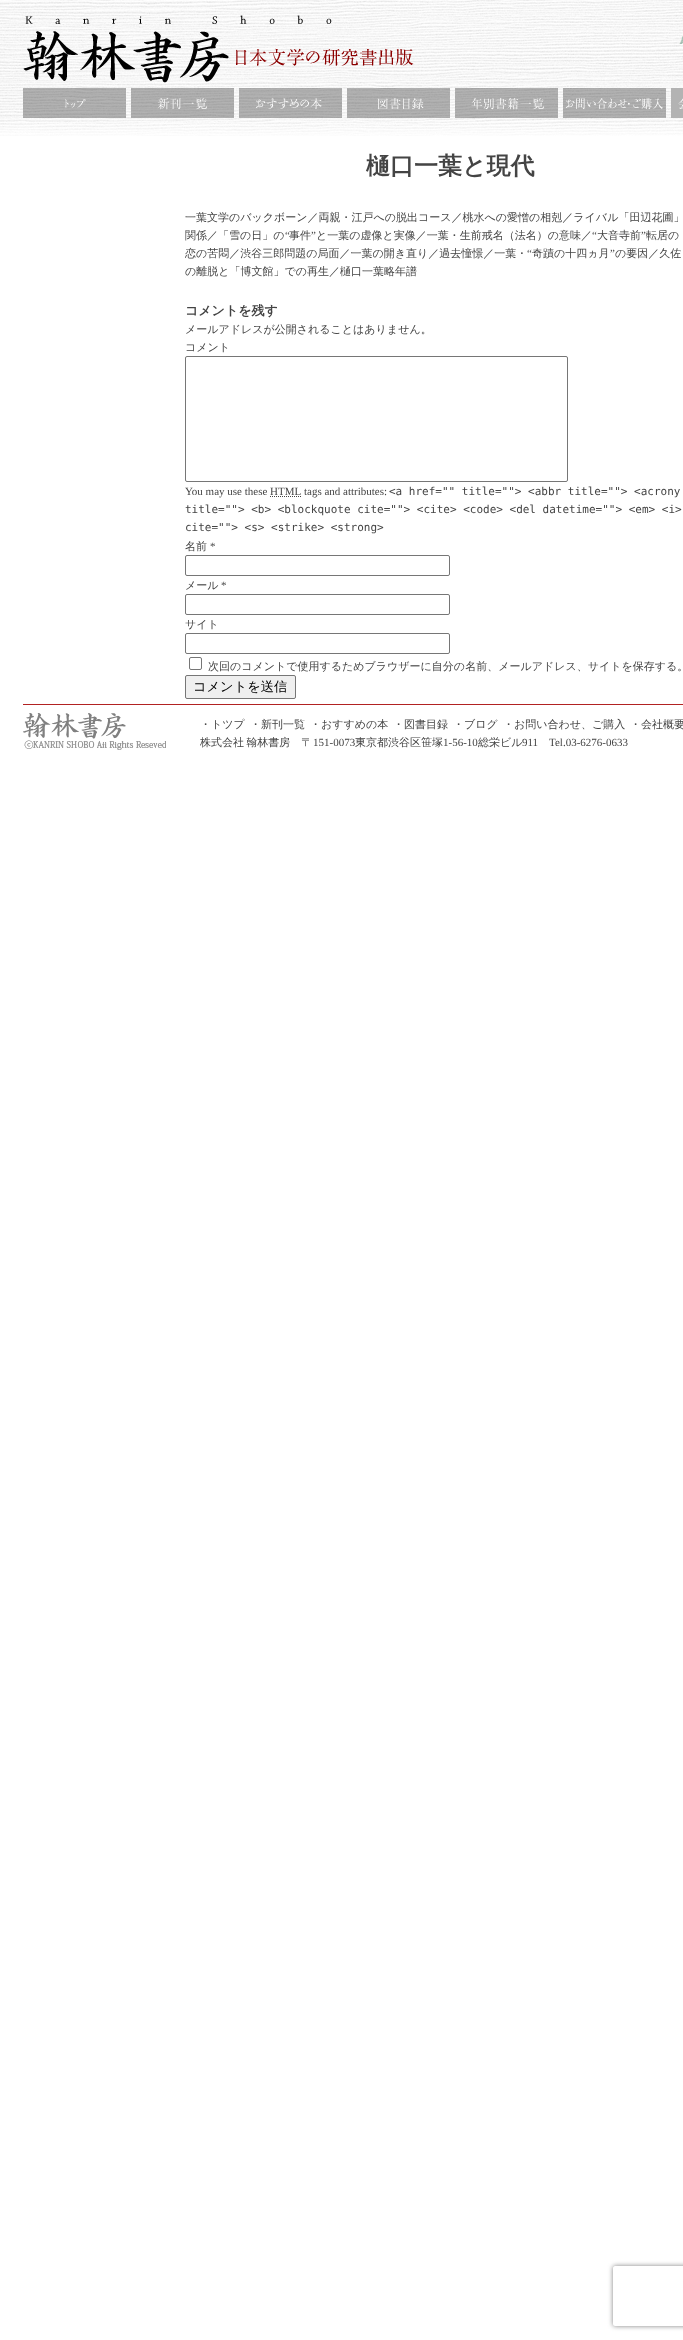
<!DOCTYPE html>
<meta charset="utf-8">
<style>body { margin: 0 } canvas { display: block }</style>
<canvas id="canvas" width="683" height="2340"></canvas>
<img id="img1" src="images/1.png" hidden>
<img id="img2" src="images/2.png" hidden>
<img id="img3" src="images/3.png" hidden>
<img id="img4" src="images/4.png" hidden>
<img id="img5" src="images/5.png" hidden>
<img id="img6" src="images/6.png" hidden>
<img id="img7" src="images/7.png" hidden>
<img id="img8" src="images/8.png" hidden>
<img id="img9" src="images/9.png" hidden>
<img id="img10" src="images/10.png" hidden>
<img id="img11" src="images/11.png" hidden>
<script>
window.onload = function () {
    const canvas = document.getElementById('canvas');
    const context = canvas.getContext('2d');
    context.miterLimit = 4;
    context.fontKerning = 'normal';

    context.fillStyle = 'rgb(255, 255, 255)';
    context.fillRect(0, 0, 683, 2340);
    context.drawImage(document.getElementById('img1'), 0, 0, 683, 136);
    context.drawImage(document.getElementById('img2'), 23, 15, 391, 68);
    context.drawImage(document.getElementById('img3'), 679, 36, 4, 8);
    context.drawImage(document.getElementById('img4'), 23, 88, 103, 30);
    context.drawImage(document.getElementById('img5'), 131, 88, 103, 30);
    context.drawImage(document.getElementById('img6'), 239, 88, 103, 30);
    context.drawImage(document.getElementById('img7'), 347, 88, 103, 30);
    context.drawImage(document.getElementById('img8'), 455, 88, 103, 30);
    context.drawImage(document.getElementById('img9'), 563, 88, 103, 30);
    context.drawImage(document.getElementById('img10'), 671, 88, 12, 30);
    context.beginPath();
    context.roundRect(185.5, 356.5, 382, 125, 1.5);
    context.strokeStyle = 'rgb(118, 118, 118)';
    context.stroke();
    context.beginPath();
    context.moveTo(270, 496.5);
    context.lineTo(301, 496.5);
    context.strokeStyle = 'rgb(68, 68, 68)';
    context.setLineDash([1, 1]);
    context.stroke();
    context.beginPath();
    context.roundRect(185.5, 555.5, 264, 20, 1.5);
    context.strokeStyle = 'rgb(118, 118, 118)';
    context.setLineDash([]);
    context.stroke();
    context.beginPath();
    context.roundRect(185.5, 594.5, 264, 20, 1.5);
    context.stroke();
    context.beginPath();
    context.roundRect(185.5, 633.5, 264, 20, 1.5);
    context.stroke();
    context.beginPath();
    context.roundRect(189.5, 657.5, 12, 12, 1.5);
    context.stroke();
    context.fillStyle = 'rgb(239, 239, 239)';
    context.beginPath();
    context.roundRect(185.5, 675.5, 110, 23, 1.5);
    context.fill();
    context.stroke();
    context.fillStyle = 'rgb(178, 34, 34)';
    context.fillRect(23, 704, 660, 1);
    context.drawImage(document.getElementById('img11'), 23, 713, 143, 37);
    context.save();
    context.beginPath();
    context.moveTo(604, 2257);
    context.lineTo(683, 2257);
    context.lineTo(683, 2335);
    context.lineTo(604, 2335);
    context.closePath();
    context.moveTo(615, 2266);
    context.lineTo(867, 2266);
    context.bezierCurveTo(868, 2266, 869, 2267, 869, 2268);
    context.lineTo(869, 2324);
    context.bezierCurveTo(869, 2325, 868, 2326, 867, 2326);
    context.lineTo(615, 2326);
    context.bezierCurveTo(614, 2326, 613, 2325, 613, 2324);
    context.lineTo(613, 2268);
    context.bezierCurveTo(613, 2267, 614, 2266, 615, 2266);
    context.closePath();
    context.clip('evenodd');
    context.fillStyle = 'rgb(128, 128, 128)';
    context.filter = 'blur(2.5px)';
    context.beginPath();
    context.roundRect(613, 2266, 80, 60, 2);
    context.fill();
    context.filter = 'none';
    context.restore();
    context.font = 'bold 24px WenQuanYi Zen Hei';
    context.fillStyle = 'rgb(68, 68, 68)';
    context.fillText('樋口一葉と現代', 366, 174);
    context.font = '500 11px WenQuanYi Zen Hei';
    context.fillText('一葉文学のバックボーン／両親・江戸への脱出コース／桃水への愛憎の相剋／ライバル「田辺花圃」', 185, 221);
    context.fillText('関係／「雪の日」の', 185, 239);
    context.font = '11px Liberation Serif';
    context.fillText('“', 285, 239);
    context.font = '500 11px WenQuanYi Zen Hei';
    context.fillText('事件', 289, 239);
    context.font = '11px Liberation Serif';
    context.fillText('”', 311, 239);
    context.font = '500 11px WenQuanYi Zen Hei';
    context.fillText('と一葉の虚像と実像／一葉・生前戒名（法名）の意味／', 316, 239);
    context.font = '11px Liberation Serif';
    context.fillText('“', 592, 239);
    context.font = '500 11px WenQuanYi Zen Hei';
    context.fillText('大音寺前', 597, 239);
    context.font = '11px Liberation Serif';
    context.fillText('”', 641, 239);
    context.font = '500 11px WenQuanYi Zen Hei';
    context.fillText('転居の', 646, 239);
    context.fillText('恋の苦悶／渋谷三郎問題の局面／一葉の開き直り／過去憧憬／一葉・', 185, 257);
    context.font = '11px Liberation Serif';
    context.fillText('“', 527, 257);
    context.font = '500 11px WenQuanYi Zen Hei';
    context.fillText('奇蹟の十四ヵ月', 532, 257);
    context.font = '11px Liberation Serif';
    context.fillText('”', 610, 257);
    context.font = '500 11px WenQuanYi Zen Hei';
    context.fillText('の要因／久佐', 615, 257);
    context.fillText('の離脱と「博文館」での再生／樋口一葉略年譜', 185, 275);
    context.font = 'bold 13px WenQuanYi Zen Hei';
    context.fillText('コメントを残す', 185, 315);
    context.font = '500 11px WenQuanYi Zen Hei';
    context.fillText('メールアドレスが公開されることはありません。', 185, 333);
    context.fillText('コメント', 185, 351);
    context.font = '11px Liberation Serif';
    context.fillText('You may use these HTML', 185, 495);
    context.fillText('tags and attributes:', 304, 495);
    context.font = '11px DejaVu Sans Mono';
    context.fillText('<a href="" title=""> <abbr title=""> <acrony', 389, 495);
    context.fillText('title=""> <b> <blockquote cite=""> <cite> <code> <del datetime=""> <em> <i>', 185, 513);
    context.fillText('cite=""> <s> <strike> <strong>', 185, 531);
    context.font = '500 11px WenQuanYi Zen Hei';
    context.fillText('名前', 185, 550);
    context.font = '11px Liberation Serif';
    context.fillText('*', 210, 550);
    context.font = '500 11px WenQuanYi Zen Hei';
    context.fillText('メール', 185, 589);
    context.font = '11px Liberation Serif';
    context.fillText('*', 221, 589);
    context.font = '500 11px WenQuanYi Zen Hei';
    context.fillText('サイト', 185, 628);
    context.fillText('次回のコメントで使用するためブラウザーに自分の名前、メールアドレス、サイトを保存する。', 208, 670);
    context.font = '500 13.25px WenQuanYi Zen Hei';
    context.fillStyle = 'rgb(0, 0, 0)';
    context.fillText('コメントを送信', 193, 691);
    context.font = '500 11px WenQuanYi Zen Hei';
    context.fillStyle = 'rgb(68, 68, 68)';
    context.fillText('・トツプ', 200, 728);
    context.fillText('・新刊一覧', 250, 728);
    context.fillText('・おすすめの本', 310, 728);
    context.fillText('・図書目録', 393, 728);
    context.fillText('・ブログ', 453, 728);
    context.fillText('・お問い合わせ、ご購入', 503, 728);
    context.fillText('・会社概要', 630, 728);
    context.wordSpacing = '-1px';
    context.fillText('株式会社 翰林書房　〒', 200, 746);
    context.wordSpacing = '0px';
    context.font = '11px Liberation Serif';
    context.fillText('151-0073', 313, 746);
    context.font = '500 11px WenQuanYi Zen Hei';
    context.fillText('東京都渋谷区笹塚', 355, 746);
    context.font = '11px Liberation Serif';
    context.fillText('1-56-10', 443, 746);
    context.font = '500 11px WenQuanYi Zen Hei';
    context.fillText('総栄ビル', 478, 746);
    context.font = '11px Liberation Serif';
    context.fillText('911', 522, 746);
    context.fillText('Tel.03-6276-0633', 549, 746);
};
</script>
